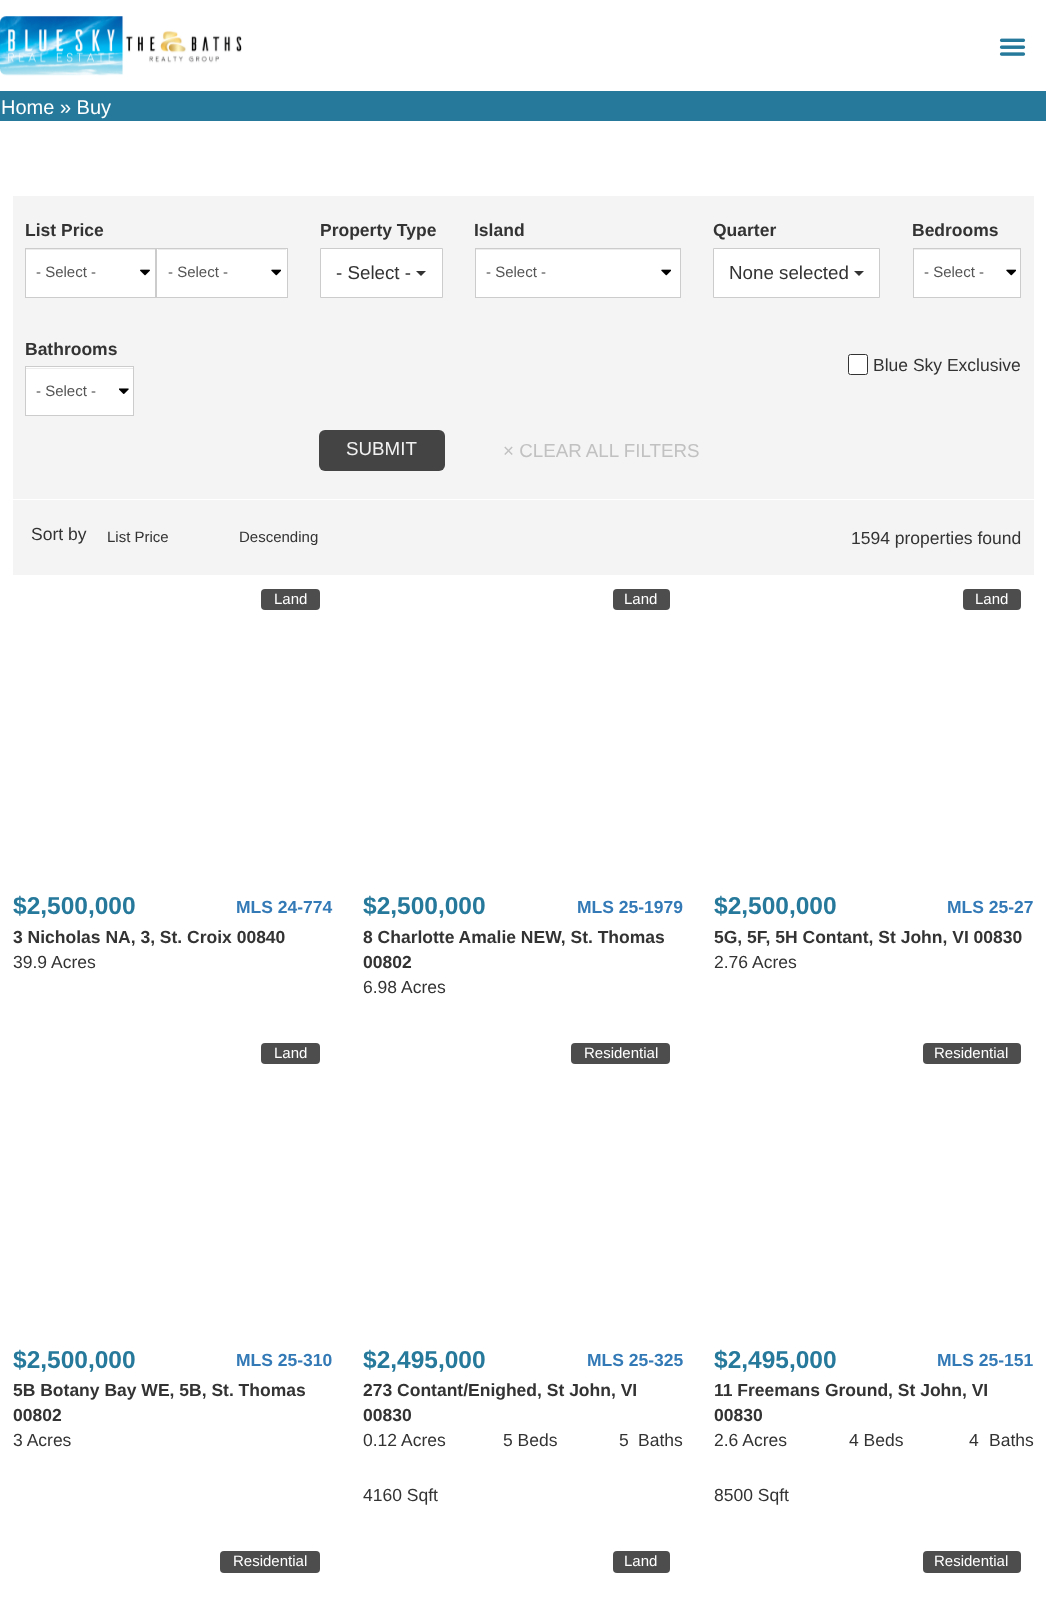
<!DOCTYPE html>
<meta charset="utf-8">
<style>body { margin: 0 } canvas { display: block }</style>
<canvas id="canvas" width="1046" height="1602"></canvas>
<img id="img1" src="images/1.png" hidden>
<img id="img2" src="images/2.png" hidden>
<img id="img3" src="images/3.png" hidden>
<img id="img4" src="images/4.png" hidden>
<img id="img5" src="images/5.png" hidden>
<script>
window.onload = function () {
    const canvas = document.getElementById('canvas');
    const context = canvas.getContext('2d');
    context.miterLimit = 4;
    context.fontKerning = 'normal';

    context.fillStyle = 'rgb(255, 255, 255)';
    context.fillRect(0, 0, 1046, 1602);
    context.drawImage(document.getElementById('img1'), 0, 16, 242, 60);
    context.drawImage(document.getElementById('img2'), 999, 38, 27, 18);
    context.fillStyle = 'rgb(38, 121, 155)';
    context.fillRect(0, 91, 1046, 30);
    context.fillStyle = 'rgb(244, 244, 244)';
    context.fillRect(13, 196, 1021, 303);
    context.fillStyle = 'rgb(255, 255, 255)';
    context.fillRect(26, 250, 129, 47);
    context.drawImage(document.getElementById('img3'), 140, 269, 10, 7);
    context.fillStyle = 'rgb(236, 236, 236)';
    context.fillRect(26, 249, 129, 1);
    context.strokeStyle = 'rgb(204, 204, 204)';
    context.strokeRect(25.5, 248.5, 130, 49);
    context.fillStyle = 'rgb(255, 255, 255)';
    context.fillRect(157, 249, 130, 48);
    context.drawImage(document.getElementById('img4'), 271, 269, 10, 7);
    context.fillStyle = 'rgb(236, 236, 236)';
    context.fillRect(158, 249, 128, 1);
    context.strokeRect(156.5, 248.5, 131, 49);
    context.fillStyle = 'rgb(255, 255, 255)';
    context.beginPath();
    context.rect(320.5, 248.5, 122, 49);
    context.fill();
    context.stroke();
    context.fillStyle = 'rgb(51, 51, 51)';
    context.beginPath();
    context.moveTo(416, 271);
    context.lineTo(426, 271);
    context.lineTo(421, 276);
    context.closePath();
    context.fill();
    context.fillStyle = 'rgb(255, 255, 255)';
    context.fillRect(476, 250, 204, 47);
    context.drawImage(document.getElementById('img4'), 661, 269, 10, 7);
    context.fillStyle = 'rgb(236, 236, 236)';
    context.fillRect(476, 249, 204, 1);
    context.strokeRect(475.5, 248.5, 205, 49);
    context.fillStyle = 'rgb(255, 255, 255)';
    context.beginPath();
    context.rect(713.5, 248.5, 166, 49);
    context.fill();
    context.stroke();
    context.fillStyle = 'rgb(51, 51, 51)';
    context.beginPath();
    context.moveTo(854, 271);
    context.lineTo(864, 271);
    context.lineTo(859, 276);
    context.closePath();
    context.fill();
    context.fillStyle = 'rgb(255, 255, 255)';
    context.fillRect(914, 250, 106, 47);
    context.drawImage(document.getElementById('img4'), 1006, 269, 10, 7);
    context.fillStyle = 'rgb(236, 236, 236)';
    context.fillRect(914, 249, 106, 1);
    context.strokeRect(913.5, 248.5, 107, 49);
    context.fillStyle = 'rgb(255, 255, 255)';
    context.fillRect(26, 367, 107, 48);
    context.drawImage(document.getElementById('img5'), 119, 388, 10, 6);
    context.fillStyle = 'rgb(236, 236, 236)';
    context.fillRect(26, 368, 107, 1);
    context.strokeRect(25.5, 366.5, 108, 49);
    context.fillStyle = 'rgb(255, 255, 255)';
    context.beginPath();
    context.roundRect(848.5, 354.5, 19, 20, 2);
    context.fill();
    context.strokeStyle = 'rgb(51, 51, 51)';
    context.stroke();
    context.fillStyle = 'rgb(68, 68, 68)';
    context.beginPath();
    context.roundRect(319, 430, 126, 41, 6);
    context.fill();
    context.fillStyle = 'rgb(244, 244, 244)';
    context.fillRect(13, 500, 1021, 75);
    context.fillStyle = 'rgb(77, 77, 77)';
    context.beginPath();
    context.roundRect(261, 589, 59, 21, 4);
    context.fill();
    context.beginPath();
    context.roundRect(613, 589, 57, 21, 4);
    context.fill();
    context.beginPath();
    context.roundRect(963, 589, 58, 21, 4);
    context.fill();
    context.beginPath();
    context.roundRect(261, 1043, 59, 21, 4);
    context.fill();
    context.beginPath();
    context.roundRect(571, 1043, 99, 21, 4);
    context.fill();
    context.beginPath();
    context.roundRect(923, 1043, 98, 21, 4);
    context.fill();
    context.beginPath();
    context.roundRect(220, 1551, 100, 22, 4);
    context.fill();
    context.beginPath();
    context.roundRect(613, 1551, 57, 22, 4);
    context.fill();
    context.beginPath();
    context.roundRect(923, 1551, 98, 22, 4);
    context.fill();
    context.font = '20px Liberation Sans';
    context.fillStyle = 'rgb(255, 255, 255)';
    context.fillText('Home » Buy', 1, 114);
    context.font = 'bold 17.5px Liberation Sans';
    context.fillStyle = 'rgb(51, 51, 51)';
    context.fillText('List Price', 25, 236);
    context.font = '15px Liberation Sans';
    context.fillStyle = 'rgb(85, 85, 85)';
    context.fillText('- Select -', 36, 277);
    context.fillText('- Select -', 168, 277);
    context.font = 'bold 17.5px Liberation Sans';
    context.fillStyle = 'rgb(51, 51, 51)';
    context.fillText('Property Type', 320, 236);
    context.font = '18.75px Liberation Sans';
    context.fillText('- Select -', 336, 279);
    context.font = 'bold 17.5px Liberation Sans';
    context.fillText('Island', 474, 236);
    context.font = '15px Liberation Sans';
    context.fillStyle = 'rgb(85, 85, 85)';
    context.fillText('- Select -', 486, 277);
    context.font = 'bold 17.5px Liberation Sans';
    context.fillStyle = 'rgb(51, 51, 51)';
    context.fillText('Quarter', 713, 236);
    context.font = '18.75px Liberation Sans';
    context.fillText('None selected', 729, 279);
    context.font = 'bold 17.5px Liberation Sans';
    context.fillText('Bedrooms', 912, 236);
    context.font = '15px Liberation Sans';
    context.fillStyle = 'rgb(85, 85, 85)';
    context.fillText('- Select -', 924, 277);
    context.font = 'bold 17.5px Liberation Sans';
    context.fillStyle = 'rgb(51, 51, 51)';
    context.fillText('Bathrooms', 25, 355);
    context.font = '15px Liberation Sans';
    context.fillStyle = 'rgb(85, 85, 85)';
    context.fillText('- Select -', 36, 396);
    context.font = '17.5px Liberation Sans';
    context.fillStyle = 'rgb(51, 51, 51)';
    context.fillText('Blue Sky Exclusive', 873, 371);
    context.font = '18.75px Liberation Sans';
    context.fillStyle = 'rgb(241, 241, 241)';
    context.fillText('SUBMIT', 346, 455);
    context.fillStyle = 'rgb(193, 193, 193)';
    context.fillText('× CLEAR ALL FILTERS', 503, 457);
    context.font = '17.5px Liberation Sans';
    context.fillStyle = 'rgb(51, 51, 51)';
    context.fillText('Sort by', 31, 540);
    context.font = '15px Liberation Sans';
    context.fillText('List Price', 107, 542);
    context.fillText('Descending', 239, 542);
    context.font = '17.5px Liberation Sans';
    context.fillText('1594 properties found', 851, 544);
    context.font = '15px Liberation Sans';
    context.fillStyle = 'rgb(255, 255, 255)';
    context.fillText('Land', 274, 604);
    context.font = 'bold 24.5px Liberation Sans';
    context.fillStyle = 'rgb(38, 121, 155)';
    context.fillText('$2,500,000', 13, 914);
    context.font = 'bold 17.5px Liberation Sans';
    context.fillStyle = 'rgb(51, 122, 183)';
    context.fillText('MLS 24-774', 236, 913);
    context.fillStyle = 'rgb(51, 51, 51)';
    context.fillText('3 Nicholas NA, 3, St. Croix 00840', 13, 943);
    context.font = '17.5px Liberation Sans';
    context.fillText('39.9 Acres', 13, 968);
    context.font = '15px Liberation Sans';
    context.fillStyle = 'rgb(255, 255, 255)';
    context.fillText('Land', 624, 604);
    context.font = 'bold 24.5px Liberation Sans';
    context.fillStyle = 'rgb(38, 121, 155)';
    context.fillText('$2,500,000', 363, 914);
    context.font = 'bold 17.5px Liberation Sans';
    context.fillStyle = 'rgb(51, 122, 183)';
    context.fillText('MLS 25-1979', 577, 913);
    context.fillStyle = 'rgb(51, 51, 51)';
    context.fillText('8 Charlotte Amalie NEW, St. Thomas', 363, 943);
    context.fillText('00802', 363, 968);
    context.font = '17.5px Liberation Sans';
    context.fillText('6.98 Acres', 363, 993);
    context.font = '15px Liberation Sans';
    context.fillStyle = 'rgb(255, 255, 255)';
    context.fillText('Land', 975, 604);
    context.font = 'bold 24.5px Liberation Sans';
    context.fillStyle = 'rgb(38, 121, 155)';
    context.fillText('$2,500,000', 714, 914);
    context.font = 'bold 17.5px Liberation Sans';
    context.fillStyle = 'rgb(51, 122, 183)';
    context.fillText('MLS 25-27', 947, 913);
    context.fillStyle = 'rgb(51, 51, 51)';
    context.fillText('5G, 5F, 5H Contant, St John, VI 00830', 714, 943);
    context.font = '17.5px Liberation Sans';
    context.fillText('2.76 Acres', 714, 968);
    context.font = '15px Liberation Sans';
    context.fillStyle = 'rgb(255, 255, 255)';
    context.fillText('Land', 274, 1058);
    context.font = 'bold 24.5px Liberation Sans';
    context.fillStyle = 'rgb(38, 121, 155)';
    context.fillText('$2,500,000', 13, 1368);
    context.font = 'bold 17.5px Liberation Sans';
    context.fillStyle = 'rgb(51, 122, 183)';
    context.fillText('MLS 25-310', 236, 1366);
    context.fillStyle = 'rgb(51, 51, 51)';
    context.fillText('5B Botany Bay WE, 5B, St. Thomas', 13, 1396);
    context.fillText('00802', 13, 1421);
    context.font = '17.5px Liberation Sans';
    context.fillText('3 Acres', 13, 1446);
    context.font = '15px Liberation Sans';
    context.fillStyle = 'rgb(255, 255, 255)';
    context.fillText('Residential', 584, 1058);
    context.font = 'bold 24.5px Liberation Sans';
    context.fillStyle = 'rgb(38, 121, 155)';
    context.fillText('$2,495,000', 363, 1368);
    context.font = 'bold 17.5px Liberation Sans';
    context.fillStyle = 'rgb(51, 122, 183)';
    context.fillText('MLS 25-325', 587, 1366);
    context.fillStyle = 'rgb(51, 51, 51)';
    context.fillText('273 Contant/Enighed, St John, VI', 363, 1396);
    context.fillText('00830', 363, 1421);
    context.font = '17.5px Liberation Sans';
    context.fillText('0.12 Acres', 363, 1446);
    context.fillText('5 Beds', 503, 1446);
    context.fillText('5', 619, 1446);
    context.fillText('Baths', 638, 1446);
    context.fillText('4160 Sqft', 363, 1501);
    context.font = '15px Liberation Sans';
    context.fillStyle = 'rgb(255, 255, 255)';
    context.fillText('Residential', 934, 1058);
    context.font = 'bold 24.5px Liberation Sans';
    context.fillStyle = 'rgb(38, 121, 155)';
    context.fillText('$2,495,000', 714, 1368);
    context.font = 'bold 17.5px Liberation Sans';
    context.fillStyle = 'rgb(51, 122, 183)';
    context.fillText('MLS 25-151', 937, 1366);
    context.fillStyle = 'rgb(51, 51, 51)';
    context.fillText('11 Freemans Ground, St John, VI', 714, 1396);
    context.fillText('00830', 714, 1421);
    context.font = '17.5px Liberation Sans';
    context.fillText('2.6 Acres', 714, 1446);
    context.fillText('4 Beds', 849, 1446);
    context.fillText('4', 969, 1446);
    context.fillText('Baths', 989, 1446);
    context.fillText('8500 Sqft', 714, 1501);
    context.font = '15px Liberation Sans';
    context.fillStyle = 'rgb(255, 255, 255)';
    context.fillText('Residential', 233, 1566);
    context.fillText('Land', 624, 1566);
    context.fillText('Residential', 934, 1566);
};
</script>
